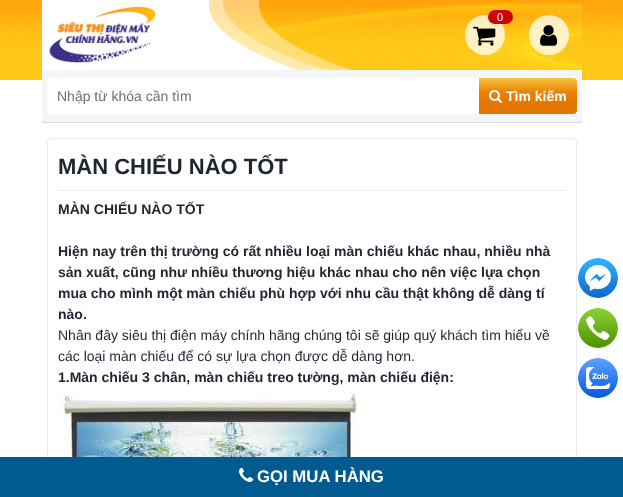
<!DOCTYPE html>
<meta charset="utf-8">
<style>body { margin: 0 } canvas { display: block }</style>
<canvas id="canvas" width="623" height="497"></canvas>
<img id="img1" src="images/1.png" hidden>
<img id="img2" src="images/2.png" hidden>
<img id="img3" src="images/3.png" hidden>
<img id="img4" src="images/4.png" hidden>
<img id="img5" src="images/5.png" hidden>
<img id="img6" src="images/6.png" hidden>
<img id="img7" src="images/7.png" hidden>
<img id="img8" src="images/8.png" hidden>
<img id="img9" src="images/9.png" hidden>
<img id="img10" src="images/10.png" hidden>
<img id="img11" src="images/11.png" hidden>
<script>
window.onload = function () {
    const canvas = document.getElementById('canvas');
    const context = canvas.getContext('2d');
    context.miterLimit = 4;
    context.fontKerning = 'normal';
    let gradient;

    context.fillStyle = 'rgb(255, 255, 255)';
    context.fillRect(0, 0, 623, 497);
    context.drawImage(document.getElementById('img1'), 0, 0, 623, 80);
    context.drawImage(document.getElementById('img2'), 42, 0, 540, 70);
    context.drawImage(document.getElementById('img3'), 48, 6, 108, 57);
    context.fillStyle = 'rgba(255, 255, 255, 0.75)';
    context.beginPath();
    context.arc(485, 35, 20, 0, 2 * Math.PI);
    context.fill();
    context.fillStyle = 'rgb(204, 4, 4)';
    context.beginPath();
    context.roundRect(488, 10, 25, 14, 7);
    context.fill();
    context.drawImage(document.getElementById('img4'), 473, 26, 23, 20);
    context.fillStyle = 'rgba(255, 255, 255, 0.75)';
    context.beginPath();
    context.arc(549, 35, 20, 0, 2 * Math.PI);
    context.fill();
    context.drawImage(document.getElementById('img5'), 540, 25, 18, 21);
    context.fillStyle = 'rgb(217, 217, 217)';
    context.fillRect(42, 122, 540, 1);
    context.fillStyle = 'rgb(243, 246, 246)';
    context.fillRect(42, 70, 540, 52);
    context.fillStyle = 'rgb(255, 255, 255)';
    context.beginPath();
    context.roundRect(47, 78, 530, 36, 5);
    context.fill();
    gradient = context.createLinearGradient(528, 78, 528, 114);
    gradient.addColorStop(0, 'rgb(246, 199, 66)');
    gradient.addColorStop(0.4, 'rgb(235, 128, 3)');
    gradient.addColorStop(0.75, 'rgb(227, 118, 0)');
    context.fillStyle = gradient;
    context.beginPath();
    context.roundRect(479, 78, 98, 36, [0, 4, 4, 0]);
    context.fill();
    context.drawImage(document.getElementById('img6'), 489, 90, 13, 13);
    context.beginPath();
    context.roundRect(47.5, 138.5, 529, 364, 4.5);
    context.strokeStyle = 'rgb(235, 235, 235)';
    context.stroke();
    context.fillStyle = 'rgb(235, 235, 235)';
    context.fillRect(58, 190, 508, 1);
    context.drawImage(document.getElementById('img7'), 58, 392, 300, 65);
    context.drawImage(document.getElementById('img8'), 578, 258, 40, 40);
    context.drawImage(document.getElementById('img9'), 578, 308, 40, 40);
    context.drawImage(document.getElementById('img10'), 578, 358, 40, 40);
    context.fillStyle = 'rgb(2, 91, 144)';
    context.fillRect(0, 457, 623, 40);
    context.drawImage(document.getElementById('img11'), 239, 467, 15, 15);
    context.font = '11px Liberation Sans';
    context.fillStyle = 'rgb(255, 255, 255)';
    context.fillText('0', 497, 21);
    context.font = '14px Liberation Sans';
    context.fillStyle = 'rgb(111, 111, 111)';
    context.fillText('Nhập từ khóa cần tìm', 57, 101);
    context.font = 'bold 14px Liberation Sans';
    context.fillStyle = 'rgb(255, 255, 255)';
    context.fillText('Tìm kiếm', 506, 101);
    context.font = 'bold 22px Liberation Sans';
    context.fillStyle = 'rgb(31, 38, 50)';
    context.fillText('MÀN CHIẾU NÀO TỐT', 58, 174);
    context.font = 'bold 14px Liberation Sans';
    context.fillText('MÀN CHIẾU NÀO TỐT', 58, 214);
    context.fillText('Hiện nay trên thị trường có rất nhiều loại màn chiếu khác nhau, nhiều nhà', 58, 256);
    context.fillText('sản xuất, cũng như nhiều thương hiệu khác nhau cho nên việc lựa chọn', 58, 277);
    context.fillText('mua cho mình một màn chiếu phù hợp với nhu cầu thật không dễ dàng tí', 58, 298);
    context.fillText('nào.', 58, 319);
    context.font = '14px Liberation Sans';
    context.fillText('Nhân đây siêu thị điện máy chính hãng chúng tôi sẽ giúp quý khách tìm hiểu về', 58, 340);
    context.fillText('các loại màn chiếu để có sự lựa chọn được dễ dàng hơn.', 58, 361);
    context.font = 'bold 14px Liberation Sans';
    context.fillText('1.Màn chiếu 3 chân, màn chiếu treo tường, màn chiếu điện:', 58, 382);
    context.font = 'bold 16.75px Liberation Sans';
    context.fillStyle = 'rgb(255, 255, 255)';
    context.fillText('GỌI MUA HÀNG', 257, 482);
};
</script>
